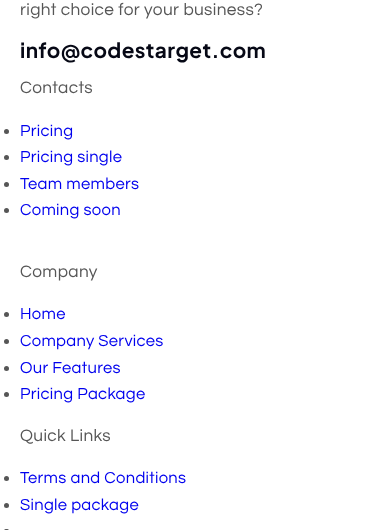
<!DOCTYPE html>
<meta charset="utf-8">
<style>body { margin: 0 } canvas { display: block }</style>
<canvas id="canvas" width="365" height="530"></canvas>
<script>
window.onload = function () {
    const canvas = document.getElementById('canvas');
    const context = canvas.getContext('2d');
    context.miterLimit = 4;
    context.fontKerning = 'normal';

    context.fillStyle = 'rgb(255, 255, 255)';
    context.fillRect(0, 0, 365, 530);
    context.fillStyle = 'rgb(86, 86, 86)';
    context.beginPath();
    context.arc(6.5, 131.5, 2.5, 0, 2 * Math.PI);
    context.fill();
    context.beginPath();
    context.arc(6.5, 157.5, 2.5, 0, 2 * Math.PI);
    context.fill();
    context.beginPath();
    context.arc(6.5, 184.5, 2.5, 0, 2 * Math.PI);
    context.fill();
    context.beginPath();
    context.arc(6.5, 210.5, 2.5, 0, 2 * Math.PI);
    context.fill();
    context.beginPath();
    context.arc(6.5, 314.5, 2.5, 0, 2 * Math.PI);
    context.fill();
    context.beginPath();
    context.arc(6.5, 341.5, 2.5, 0, 2 * Math.PI);
    context.fill();
    context.beginPath();
    context.arc(6.5, 368.5, 2.5, 0, 2 * Math.PI);
    context.fill();
    context.beginPath();
    context.arc(6.5, 394.5, 2.5, 0, 2 * Math.PI);
    context.fill();
    context.beginPath();
    context.arc(6.5, 478.5, 2.5, 0, 2 * Math.PI);
    context.fill();
    context.beginPath();
    context.arc(6.5, 505.5, 2.5, 0, 2 * Math.PI);
    context.fill();
    context.beginPath();
    context.roundRect(4, 529, 5, 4, 2.5);
    context.fill();
    context.letterSpacing = '0.35px';
    context.font = '17.25px Questrial';
    context.fillText('right choice for your business?', 20, 15);
    context.letterSpacing = '0.4px';
    context.font = 'bold 20.75px Plus Jakarta Sans';
    context.fillStyle = 'rgb(6, 8, 21)';
    context.fillText('info@codestarget.com', 20, 58);
    context.letterSpacing = '0.35px';
    context.font = '17.25px Questrial';
    context.fillStyle = 'rgb(86, 86, 86)';
    context.fillText('Contacts', 20, 93);
    context.letterSpacing = '0.3px';
    context.font = '16.6px Questrial';
    context.fillStyle = 'rgb(0, 0, 238)';
    context.fillText('Pricing', 20, 136);
    context.fillText('Pricing single', 20, 162);
    context.fillText('Team members', 20, 189);
    context.fillText('Coming soon', 20, 215);
    context.letterSpacing = '0.35px';
    context.font = '17.25px Questrial';
    context.fillStyle = 'rgb(86, 86, 86)';
    context.fillText('Company', 20, 277);
    context.letterSpacing = '0.3px';
    context.font = '16.6px Questrial';
    context.fillStyle = 'rgb(0, 0, 238)';
    context.fillText('Home', 20, 319);
    context.fillText('Company Services', 20, 346);
    context.fillText('Our Features', 20, 373);
    context.fillText('Pricing Package', 20, 399);
    context.letterSpacing = '0.35px';
    context.font = '17.25px Questrial';
    context.fillStyle = 'rgb(86, 86, 86)';
    context.fillText('Quick Links', 20, 441);
    context.letterSpacing = '0.3px';
    context.font = '16.6px Questrial';
    context.fillStyle = 'rgb(0, 0, 238)';
    context.fillText('Terms and Conditions', 20, 483);
    context.fillText('Single package', 20, 510);
};
</script>
